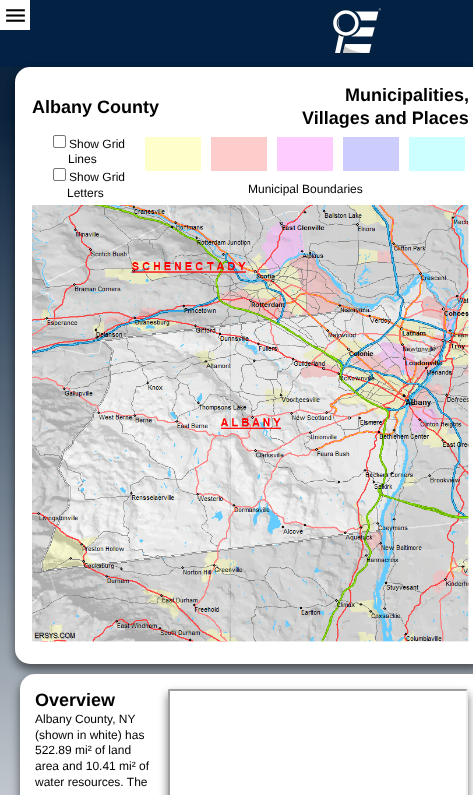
<!DOCTYPE html>
<meta charset="utf-8">
<style>body { margin: 0 } canvas { display: block }</style>
<canvas id="canvas" width="473" height="795"></canvas>
<img id="img1" src="images/1.png" hidden>
<img id="img2" src="images/2.png" hidden>
<img id="img3" src="images/3.png" hidden>
<img id="img4" src="images/4.png" hidden>
<script>
window.onload = function () {
    const canvas = document.getElementById('canvas');
    const context = canvas.getContext('2d');
    context.miterLimit = 4;
    context.fontKerning = 'normal';

    context.fillStyle = 'rgb(255, 255, 255)';
    context.fillRect(0, 0, 473, 795);
    context.drawImage(document.getElementById('img1'), 0, 67, 473, 728);
    context.fillStyle = 'rgb(3, 33, 67)';
    context.fillRect(0, 0, 473, 67);
    context.drawImage(document.getElementById('img2'), 333, 8, 48, 45);
    context.fillStyle = 'rgb(255, 255, 255)';
    context.fillRect(0, 0, 30, 30);
    context.drawImage(document.getElementById('img3'), 6, 9, 19, 13);
    context.fillStyle = 'rgba(0, 0, 0, 0.4)';
    context.filter = 'blur(5px)';
    context.beginPath();
    context.roundRect(15, 73, 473, 597, 15);
    context.fill();
    context.filter = 'none';
    context.fillStyle = 'rgba(0, 0, 0, 0.2)';
    context.filter = 'blur(4px)';
    context.beginPath();
    context.roundRect(15, 71, 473, 597, 15);
    context.fill();
    context.filter = 'none';
    context.fillStyle = 'rgb(255, 255, 255)';
    context.beginPath();
    context.roundRect(15, 67, 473, 597, 15);
    context.fill();
    context.beginPath();
    context.roundRect(53.5, 135.5, 12, 12, 1.5);
    context.strokeStyle = 'rgb(118, 118, 118)';
    context.stroke();
    context.beginPath();
    context.roundRect(53.5, 168.5, 12, 12, 1.5);
    context.stroke();
    context.fillStyle = 'rgb(255, 255, 204)';
    context.fillRect(145, 137, 56, 34);
    context.fillStyle = 'rgb(255, 204, 204)';
    context.fillRect(211, 137, 56, 34);
    context.fillStyle = 'rgb(255, 204, 255)';
    context.fillRect(277, 137, 56, 34);
    context.fillStyle = 'rgb(204, 204, 255)';
    context.fillRect(343, 137, 56, 34);
    context.fillStyle = 'rgb(204, 255, 255)';
    context.fillRect(409, 137, 56, 34);
    context.drawImage(document.getElementById('img4'), 32, 205, 437, 437);
    context.fillStyle = 'rgba(0, 0, 0, 0.4)';
    context.filter = 'blur(5px)';
    context.beginPath();
    context.roundRect(20, 680, 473, 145, 15);
    context.fill();
    context.filter = 'none';
    context.fillStyle = 'rgba(0, 0, 0, 0.2)';
    context.filter = 'blur(4px)';
    context.beginPath();
    context.roundRect(20, 678, 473, 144, 15);
    context.fill();
    context.filter = 'none';
    context.fillStyle = 'rgb(255, 255, 255)';
    context.beginPath();
    context.roundRect(20, 674, 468, 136, 15);
    context.fill();
    context.save();
    context.beginPath();
    context.moveTo(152, 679);
    context.lineTo(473, 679);
    context.lineTo(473, 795);
    context.lineTo(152, 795);
    context.closePath();
    context.moveTo(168, 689);
    context.lineTo(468, 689);
    context.lineTo(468, 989);
    context.lineTo(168, 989);
    context.closePath();
    context.clip('evenodd');
    context.fillStyle = 'rgba(0, 0, 0, 0.4)';
    context.filter = 'blur(5px)';
    context.beginPath();
    context.rect(168, 695, 300, 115);
    context.fill();
    context.filter = 'none';
    context.restore();
    context.save();
    context.beginPath();
    context.moveTo(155, 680);
    context.lineTo(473, 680);
    context.lineTo(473, 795);
    context.lineTo(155, 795);
    context.closePath();
    context.moveTo(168, 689);
    context.lineTo(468, 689);
    context.lineTo(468, 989);
    context.lineTo(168, 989);
    context.closePath();
    context.clip('evenodd');
    context.fillStyle = 'rgba(0, 0, 0, 0.2)';
    context.filter = 'blur(4px)';
    context.beginPath();
    context.rect(168, 693, 300, 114);
    context.fill();
    context.filter = 'none';
    context.restore();
    context.fillStyle = 'rgb(159, 159, 159)';
    context.beginPath();
    context.moveTo(168, 689);
    context.lineTo(468, 689);
    context.lineTo(466, 691);
    context.lineTo(170, 691);
    context.closePath();
    context.fill();
    context.fillStyle = 'rgb(238, 238, 238)';
    context.beginPath();
    context.moveTo(468, 689);
    context.lineTo(468, 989);
    context.lineTo(466, 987);
    context.lineTo(466, 691);
    context.closePath();
    context.fill();
    context.fillStyle = 'rgb(159, 159, 159)';
    context.beginPath();
    context.moveTo(168, 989);
    context.lineTo(168, 689);
    context.lineTo(170, 691);
    context.lineTo(170, 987);
    context.closePath();
    context.fill();
    context.font = 'bold 18px Liberation Sans';
    context.fillStyle = 'rgb(0, 0, 0)';
    context.fillText('Albany County', 32, 113);
    context.fillText('Municipalities,', 345, 101);
    context.fillText('Villages and Places', 302, 124);
    context.font = '12px Liberation Sans';
    context.fillText('Show Grid', 69, 148);
    context.fillText('Lines', 68, 163);
    context.fillText('Show Grid', 69, 181);
    context.fillText('Letters', 67, 197);
    context.fillText('Municipal Boundaries', 248, 193);
    context.font = 'bold 18px Liberation Sans';
    context.fillText('Overview', 35, 706);
    context.font = '12px Liberation Sans';
    context.fillText('Albany County, NY', 35, 723);
    context.fillText('(shown in white) has', 35, 739);
    context.fillText('522.89 mi² of land', 35, 754);
    context.fillText('area and 10.41 mi² of', 35, 770);
    context.fillText('water resources. The', 35, 786);
};
</script>
